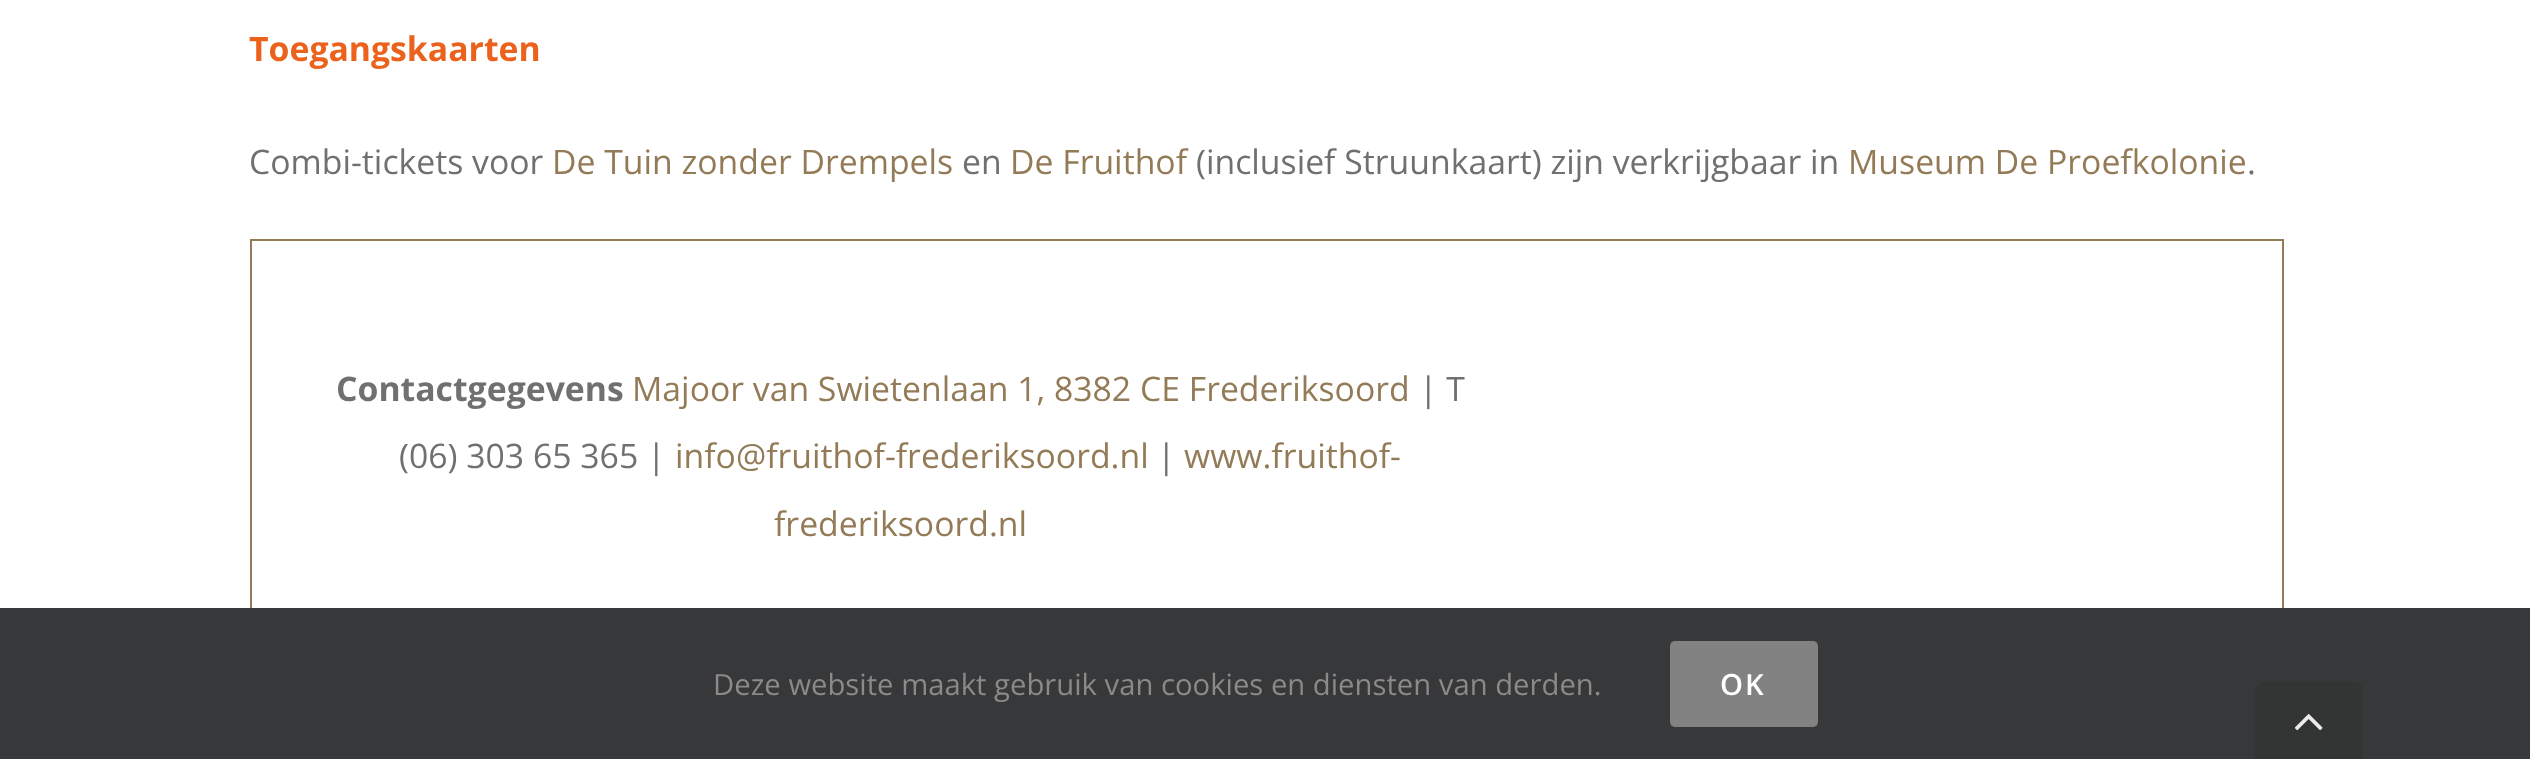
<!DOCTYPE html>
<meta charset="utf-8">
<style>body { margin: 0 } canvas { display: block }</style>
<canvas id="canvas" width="2530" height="759"></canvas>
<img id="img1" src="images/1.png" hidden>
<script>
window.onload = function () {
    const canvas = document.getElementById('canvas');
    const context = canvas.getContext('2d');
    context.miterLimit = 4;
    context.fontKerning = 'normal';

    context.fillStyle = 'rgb(255, 255, 255)';
    context.fillRect(0, 0, 2530, 759);
    context.strokeStyle = 'rgb(147, 123, 87)';
    context.lineWidth = 2;
    context.strokeRect(251, 240, 2032, 452);
    context.fillStyle = 'rgb(54, 56, 57)';
    context.fillRect(0, 608, 2530, 151);
    context.fillStyle = 'rgb(130, 130, 130)';
    context.beginPath();
    context.roundRect(1670, 641, 148, 86, 5);
    context.fill();
    context.fillStyle = 'rgb(51, 52, 52)';
    context.beginPath();
    context.moveTo(2264, 682);
    context.lineTo(2354, 682);
    context.bezierCurveTo(2359, 682, 2363, 686, 2363, 691);
    context.lineTo(2363, 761);
    context.lineTo(2255, 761);
    context.lineTo(2255, 691);
    context.bezierCurveTo(2255, 686, 2259, 682, 2264, 682);
    context.closePath();
    context.fill();
    context.drawImage(document.getElementById('img1'), 2294, 714, 29, 17);
    context.font = 'bold 33.75px Open Sans';
    context.fillStyle = 'rgb(235, 98, 28)';
    context.fillText('Toegangskaarten', 249, 61);
    context.font = '33.75px Open Sans';
    context.fillStyle = 'rgb(112, 112, 112)';
    context.fillText('Combi-tickets voor', 249, 174);
    context.fillStyle = 'rgb(147, 123, 87)';
    context.fillText('De Tuin zonder Drempels', 552, 174);
    context.fillStyle = 'rgb(112, 112, 112)';
    context.fillText('en', 962, 174);
    context.fillStyle = 'rgb(147, 123, 87)';
    context.fillText('De Fruithof', 1010, 174);
    context.fillStyle = 'rgb(112, 112, 112)';
    context.fillText('(inclusief Struunkaart) zijn verkrijgbaar in', 1196, 174);
    context.fillStyle = 'rgb(147, 123, 87)';
    context.fillText('Museum De Proefkolonie', 1848, 174);
    context.fillStyle = 'rgb(112, 112, 112)';
    context.fillText('.', 2247, 174);
    context.font = 'bold 33.75px Open Sans';
    context.fillText('Contactgegevens', 336, 401);
    context.font = '33.75px Open Sans';
    context.fillStyle = 'rgb(147, 123, 87)';
    context.fillText('Majoor van Swietenlaan 1, 8382 CE Frederiksoord', 632, 401);
    context.fillStyle = 'rgb(112, 112, 112)';
    context.fillText('| T', 1419, 401);
    context.fillText('(06) 303 65 365 |', 399, 468);
    context.fillStyle = 'rgb(147, 123, 87)';
    context.fillText('info@fruithof-frederiksoord.nl', 675, 468);
    context.fillStyle = 'rgb(112, 112, 112)';
    context.fillText('|', 1157, 468);
    context.fillStyle = 'rgb(147, 123, 87)';
    context.fillText('www.fruithof-', 1184, 468);
    context.fillText('frederiksoord.nl', 774, 536);
    context.font = '29.25px Open Sans';
    context.fillStyle = 'rgb(140, 137, 137)';
    context.fillText('Deze website maakt gebruik van cookies en diensten van derden.', 713, 695);
    context.letterSpacing = '2px';
    context.font = '600 29.25px Open Sans';
    context.fillStyle = 'rgb(255, 255, 255)';
    context.fillText('OK', 1720, 695);
};
</script>
